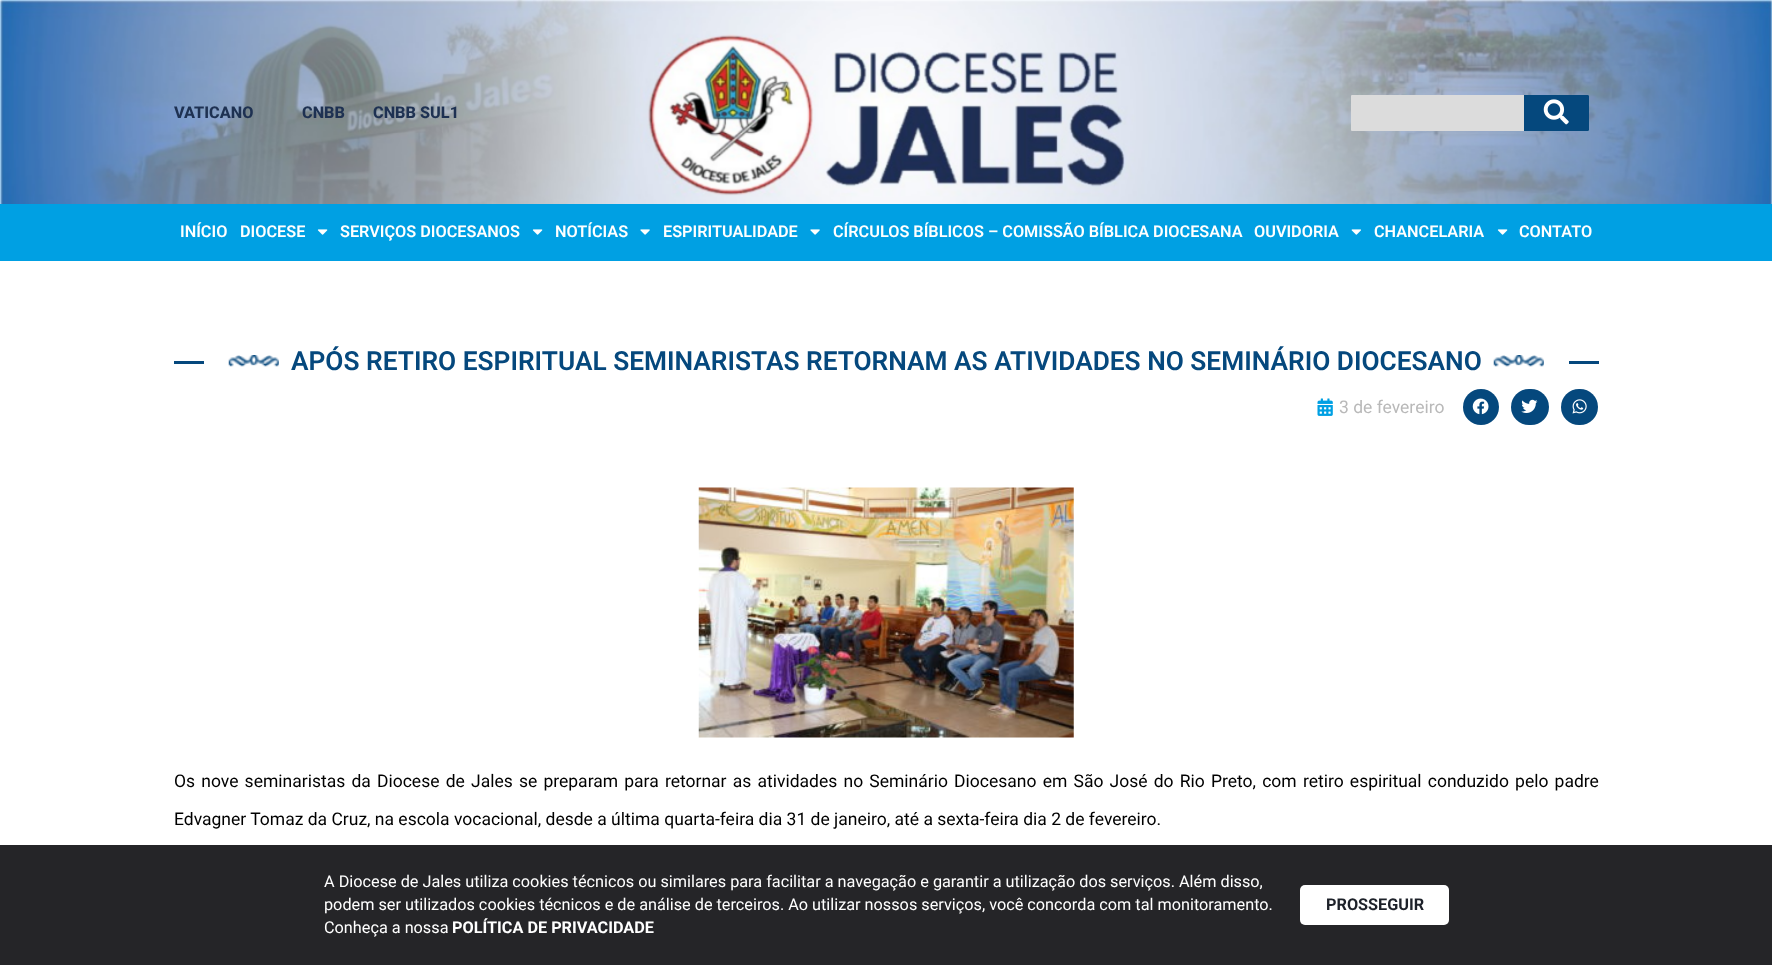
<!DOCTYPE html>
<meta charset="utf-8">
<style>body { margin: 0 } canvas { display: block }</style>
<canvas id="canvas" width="1772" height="965"></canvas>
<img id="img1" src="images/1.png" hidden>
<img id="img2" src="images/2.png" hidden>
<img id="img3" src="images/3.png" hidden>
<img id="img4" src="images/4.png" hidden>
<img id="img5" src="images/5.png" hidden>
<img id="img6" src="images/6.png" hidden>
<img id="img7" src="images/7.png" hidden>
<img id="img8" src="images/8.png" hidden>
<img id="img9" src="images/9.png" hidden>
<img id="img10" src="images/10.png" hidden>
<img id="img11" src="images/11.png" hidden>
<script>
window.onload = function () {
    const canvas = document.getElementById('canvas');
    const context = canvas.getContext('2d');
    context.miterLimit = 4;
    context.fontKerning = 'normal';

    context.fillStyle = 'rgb(255, 255, 255)';
    context.fillRect(0, 0, 1772, 965);
    context.drawImage(document.getElementById('img1'), 0, 0, 1772, 204);
    context.fillStyle = 'rgb(220, 220, 220)';
    context.beginPath();
    context.roundRect(1351, 95, 238, 36, 1);
    context.fill();
    context.fillStyle = 'rgb(5, 72, 125)';
    context.beginPath();
    context.roundRect(1524, 95, 65, 36, [0, 1, 1, 0]);
    context.fill();
    context.drawImage(document.getElementById('img2'), 1543, 99, 26, 26);
    context.fillStyle = 'rgb(0, 160, 227)';
    context.fillRect(0, 204, 1772, 57);
    context.drawImage(document.getElementById('img3'), 317, 229, 11, 6);
    context.drawImage(document.getElementById('img3'), 532, 229, 11, 6);
    context.drawImage(document.getElementById('img4'), 640, 229, 10, 6);
    context.drawImage(document.getElementById('img4'), 810, 229, 10, 6);
    context.drawImage(document.getElementById('img5'), 1351, 229, 10, 6);
    context.drawImage(document.getElementById('img3'), 1497, 229, 11, 6);
    context.fillStyle = 'rgb(5, 72, 125)';
    context.fillRect(174, 361, 1425, 3);
    context.fillStyle = 'rgb(255, 255, 255)';
    context.fillRect(204, 361, 1365, 3);
    context.drawImage(document.getElementById('img6'), 228, 355, 51, 12);
    context.drawImage(document.getElementById('img6'), 1493, 355, 51, 12);
    context.drawImage(document.getElementById('img7'), 1317, 398, 16, 18);
    context.fillStyle = 'rgb(5, 72, 125)';
    context.beginPath();
    context.arc(1481, 407, 18, 0, 2 * Math.PI);
    context.fill();
    context.drawImage(document.getElementById('img8'), 1472, 398, 17, 17);
    context.beginPath();
    context.roundRect(1511, 389, 38, 36, 18);
    context.fill();
    context.drawImage(document.getElementById('img9'), 1521, 399, 17, 14);
    context.beginPath();
    context.roundRect(1561, 389, 37, 36, 18);
    context.fill();
    context.drawImage(document.getElementById('img10'), 1572, 399, 15, 15);
    context.drawImage(document.getElementById('img11'), 698, 487, 376, 251);
    context.fillStyle = 'rgb(37, 37, 40)';
    context.fillRect(0, 845, 1772, 120);
    context.fillStyle = 'rgb(255, 255, 255)';
    context.beginPath();
    context.roundRect(1300, 885, 149, 40, 5);
    context.fill();
    context.font = '800 16.25px Roboto';
    context.fillStyle = 'rgb(30, 49, 82)';
    context.fillText('VATICANO', 174, 118);
    context.fillText('CNBB', 302, 118);
    context.fillText('CNBB SUL1', 373, 118);
    context.font = '600 16.25px Roboto';
    context.fillStyle = 'rgb(255, 255, 255)';
    context.fillText('INÍCIO', 180, 237);
    context.fillText('DIOCESE', 240, 237);
    context.fillText('SERVIÇOS DIOCESANOS', 340, 237);
    context.fillText('NOTÍCIAS', 555, 237);
    context.fillText('ESPIRITUALIDADE', 663, 237);
    context.fillText('CÍRCULOS BÍBLICOS – COMISSÃO BÍBLICA DIOCESANA', 833, 237);
    context.fillText('OUVIDORIA', 1254, 237);
    context.fillText('CHANCELARIA', 1374, 237);
    context.fillText('CONTATO', 1519, 237);
    context.font = '600 26.25px Roboto';
    context.fillStyle = 'rgb(5, 72, 125)';
    context.fillText('APÓS RETIRO ESPIRITUAL SEMINARISTAS RETORNAM AS ATIVIDADES NO SEMINÁRIO DIOCESANO', 291, 370);
    context.font = '17.5px Roboto';
    context.fillStyle = 'rgb(185, 185, 185)';
    context.fillText('3 de fevereiro', 1339, 413);
    context.wordSpacing = '1.85px';
    context.fillStyle = 'rgb(0, 0, 0)';
    context.fillText('Os nove seminaristas da Diocese de Jales se preparam para retornar as atividades no Seminário Diocesano em São José do Rio Preto, com retiro espiritual conduzido pelo padre', 174, 787);
    context.wordSpacing = '0px';
    context.fillText('Edvagner Tomaz da Cruz, na escola vocacional, desde a última quarta-feira dia 31 de janeiro, até a sexta-feira dia 2 de fevereiro.', 174, 825);
    context.font = '16.25px Roboto';
    context.fillStyle = 'rgb(255, 255, 255)';
    context.fillText('A Diocese de Jales utiliza cookies técnicos ou similares para facilitar a navegação e garantir a utilização dos serviços. Além disso,', 324, 887);
    context.fillText('podem ser utilizados cookies técnicos e de análise de terceiros. Ao utilizar nossos serviços, você concorda com tal monitoramento.', 324, 910);
    context.fillText('Conheça a nossa', 324, 933);
    context.font = 'bold 16.25px Roboto';
    context.fillText('POLÍTICA DE PRIVACIDADE', 452, 933);
    context.fillStyle = 'rgb(29, 33, 41)';
    context.fillText('PROSSEGUIR', 1326, 910);
};
</script>
